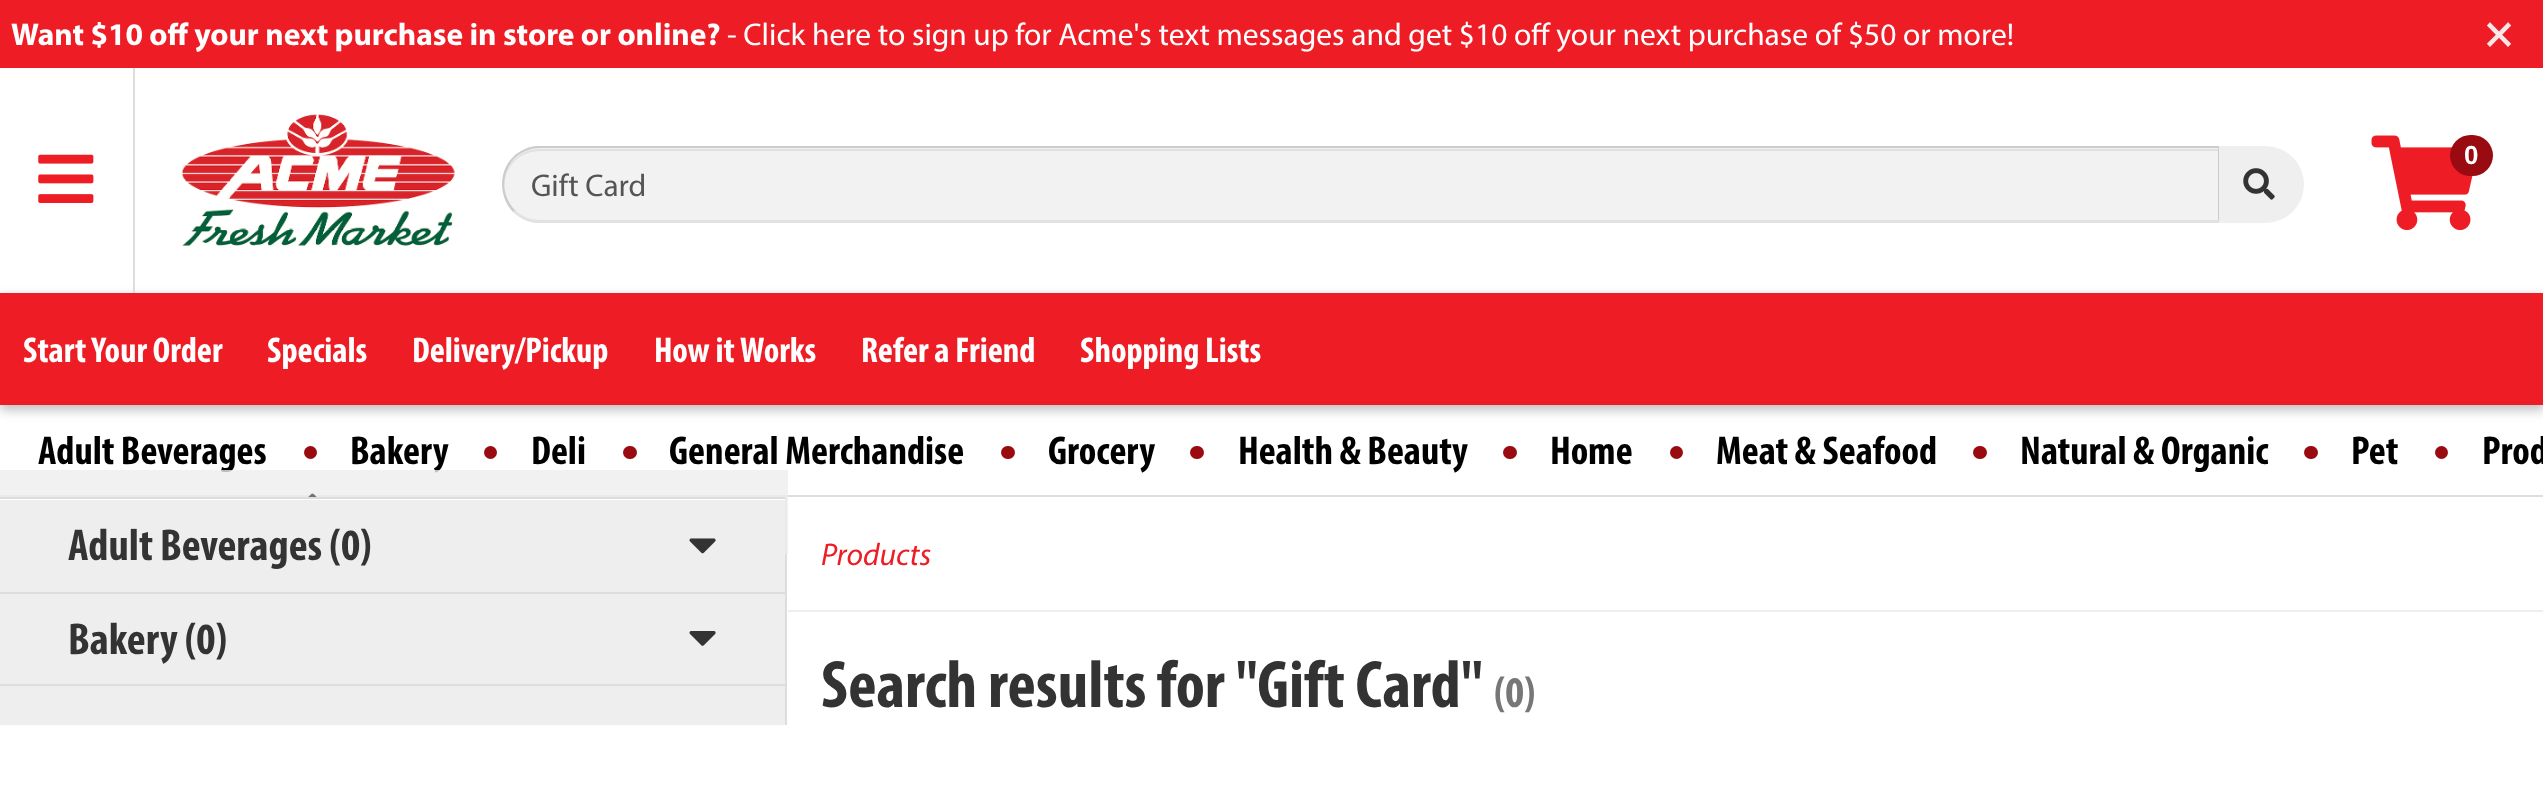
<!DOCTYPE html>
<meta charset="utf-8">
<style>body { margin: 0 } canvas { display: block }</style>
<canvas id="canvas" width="2543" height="790"></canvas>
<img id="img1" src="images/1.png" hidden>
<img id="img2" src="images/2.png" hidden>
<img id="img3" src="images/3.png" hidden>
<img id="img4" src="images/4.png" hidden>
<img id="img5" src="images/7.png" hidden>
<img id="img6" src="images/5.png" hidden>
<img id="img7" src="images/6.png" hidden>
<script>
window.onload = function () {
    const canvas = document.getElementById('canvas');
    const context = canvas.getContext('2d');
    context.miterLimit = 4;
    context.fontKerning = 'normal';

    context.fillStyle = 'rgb(255, 255, 255)';
    context.fillRect(0, 0, 2543, 790);
    context.fillStyle = 'rgb(238, 28, 36)';
    context.fillRect(0, 0, 2543, 68);
    context.fillStyle = 'rgba(0, 0, 0, 0.25)';
    context.filter = 'blur(5.5px)';
    context.beginPath();
    context.rect(0, 297, 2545, 113);
    context.fill();
    context.filter = 'none';
    context.fillStyle = 'rgb(221, 221, 221)';
    context.fillRect(133, 68, 2, 225);
    context.drawImage(document.getElementById('img1'), 38, 154, 56, 49);
    context.drawImage(document.getElementById('img2'), 181, 114, 274, 132);
    context.drawImage(document.getElementById('img3'), 2371, 135, 102, 96);
    context.fillStyle = 'rgb(153, 11, 17)';
    context.beginPath();
    context.roundRect(2450, 135, 43, 41, 20.5);
    context.fill();
    context.fillStyle = 'rgb(242, 242, 242)';
    context.beginPath();
    context.roundRect(502, 146, 1719, 77, [38.5, 0, 0, 38.5]);
    context.fill();
    context.fillStyle = 'rgb(224, 224, 224)';
    context.beginPath();
    context.moveTo(540, 151);
    context.lineTo(2218, 151);
    context.lineTo(2218, 221);
    context.lineTo(2219, 221);
    context.lineTo(2219, 149);
    context.lineTo(540, 149);
    context.bezierCurveTo(520, 149, 504, 165, 504, 185);
    context.lineTo(504, 186);
    context.bezierCurveTo(505, 166, 520, 151, 540, 151);
    context.closePath();
    context.fill();
    context.fillStyle = 'rgb(204, 204, 204)';
    context.beginPath();
    context.moveTo(540, 148);
    context.bezierCurveTo(530, 148, 521, 152, 514, 159);
    context.lineTo(513, 157);
    context.bezierCurveTo(519, 151, 527, 147, 536, 146);
    context.lineTo(2221, 146);
    context.lineTo(2218, 149);
    context.lineTo(2218, 148);
    context.closePath();
    context.fill();
    context.beginPath();
    context.moveTo(2221, 146);
    context.lineTo(2218, 149);
    context.lineTo(2218, 220);
    context.lineTo(2221, 223);
    context.closePath();
    context.fill();
    context.fillStyle = 'rgb(226, 226, 226)';
    context.beginPath();
    context.moveTo(2221, 223);
    context.lineTo(536, 223);
    context.bezierCurveTo(527, 222, 519, 218, 513, 212);
    context.lineTo(515, 210);
    context.bezierCurveTo(521, 216, 530, 220, 540, 220);
    context.lineTo(2218, 220);
    context.closePath();
    context.fill();
    context.fillStyle = 'rgb(204, 204, 204)';
    context.beginPath();
    context.moveTo(513, 212);
    context.bezierCurveTo(499, 197, 498, 172, 513, 157);
    context.lineTo(514, 159);
    context.bezierCurveTo(501, 173, 501, 196, 515, 210);
    context.closePath();
    context.fill();
    context.fillStyle = 'rgb(239, 239, 239)';
    context.beginPath();
    context.roundRect(2219, 146, 85, 77, [0, 38.5, 38.5, 0]);
    context.fill();
    context.drawImage(document.getElementById('img4'), 2243, 168, 32, 32);
    context.fillStyle = 'rgb(238, 28, 36)';
    context.fillRect(0, 293, 2543, 112);
    context.fillStyle = 'rgb(153, 11, 17)';
    context.beginPath();
    context.arc(310.5, 452.5, 6.5, 0, 2 * Math.PI);
    context.fill();
    context.beginPath();
    context.arc(490.5, 452.5, 6.5, 0, 2 * Math.PI);
    context.fill();
    context.beginPath();
    context.roundRect(623, 446, 14, 13, 6.5);
    context.fill();
    context.beginPath();
    context.roundRect(1001, 446, 14, 13, 6.5);
    context.fill();
    context.beginPath();
    context.roundRect(1190, 446, 14, 13, 6.5);
    context.fill();
    context.beginPath();
    context.roundRect(1503, 446, 14, 13, 6.5);
    context.fill();
    context.beginPath();
    context.arc(1676.5, 452.5, 6.5, 0, 2 * Math.PI);
    context.fill();
    context.beginPath();
    context.roundRect(1973, 446, 14, 13, 6.5);
    context.fill();
    context.beginPath();
    context.roundRect(2304, 446, 14, 13, 6.5);
    context.fill();
    context.beginPath();
    context.arc(2441.5, 452.5, 6.5, 0, 2 * Math.PI);
    context.fill();
    context.fillStyle = 'rgb(221, 221, 221)';
    context.fillRect(0, 495, 2543, 2);
    context.fillRect(785, 497, 2, 228);
    context.fillRect(0, 592, 785, 2);
    context.fillStyle = 'rgb(238, 238, 238)';
    context.fillRect(0, 594, 785, 90);
    context.drawImage(document.getElementById('img5'), 689, 631, 27, 15);
    context.fillStyle = 'rgb(221, 221, 221)';
    context.fillRect(0, 684, 785, 2);
    context.fillStyle = 'rgb(238, 238, 238)';
    context.fillRect(0, 686, 785, 39);
    context.fillRect(788, 610, 1755, 2);
    context.font = 'bold 31.5px Myriad';
    context.fillStyle = 'rgb(255, 255, 255)';
    context.fillText('Want $10 off your next purchase in store or online?', 11, 45);
    context.font = '31.5px Myriad';
    context.fillText('- Click here to sign up for Acme\'s text messages and get $10 off your next purchase of $50 or more!', 727, 45);
    context.font = 'bold 47px Myriad';
    context.fillStyle = 'rgb(253, 232, 233)';
    context.fillText('×', 2485, 47);
    context.font = 'bold 26px Liberation Sans';
    context.fillStyle = 'rgb(255, 255, 255)';
    context.fillText('0', 2464, 164);
    context.font = '31.5px Myriad';
    context.fillStyle = 'rgb(85, 85, 85)';
    context.fillText('Gift Card', 531, 196);
    context.font = 'bold 36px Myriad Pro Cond';
    context.fillStyle = 'rgb(255, 255, 255)';
    context.fillText('Start Your Order', 23, 362);
    context.fillText('Specials', 267, 362);
    context.fillText('Delivery/Pickup', 412, 362);
    context.fillText('How it Works', 654, 362);
    context.fillText('Refer a Friend', 861, 362);
    context.fillText('Shopping Lists', 1080, 362);
    context.font = 'bold 40.5px Myriad Pro Cond';
    context.fillStyle = 'rgb(0, 0, 0)';
    context.fillText('Adult Beverages', 38, 464);
    context.fillText('Bakery', 350, 464);
    context.fillText('Deli', 531, 464);
    context.fillText('General Merchandise', 669, 464);
    context.fillText('Grocery', 1048, 464);
    context.fillText('Health & Beauty', 1238, 464);
    context.fillText('Home', 1550, 464);
    context.fillText('Meat & Seafood', 1716, 464);
    context.fillText('Natural & Organic', 2020, 464);
    context.fillText('Pet', 2351, 464);
    context.fillText('Prod', 2482, 464);
    context.fillStyle = 'rgba(238, 238, 238, 0.8)';
    context.fillRect(0, 470, 788, 84);
    context.drawImage(document.getElementById('img6'), 308, 493, 9, 4);
    context.fillStyle = 'rgb(255, 255, 255)';
    context.fillRect(0, 499, 785, 1);
    context.fillStyle = 'rgb(221, 221, 221)';
    context.fillRect(0, 497, 785, 2);
    context.fillStyle = 'rgb(238, 238, 238)';
    context.fillRect(0, 500, 785, 92);
    context.font = 'bold 45px Myriad Pro Cond';
    context.fillStyle = 'rgb(51, 51, 51)';
    context.fillText('Adult Beverages (0)', 68, 560);
    context.drawImage(document.getElementById('img7'), 689, 538, 27, 16);
    context.fillText('Bakery (0)', 68, 654);
    context.font = 'italic 31.5px Myriad';
    context.fillStyle = 'rgb(238, 28, 36)';
    context.fillText('Products', 821, 565);
    context.font = 'bold 67.5px Myriad Pro Cond';
    context.fillStyle = 'rgb(51, 51, 51)';
    context.fillText('Search results for "Gift Card"', 821, 707);
    context.font = 'bold 44px Myriad Pro Cond';
    context.fillStyle = 'rgb(119, 119, 119)';
    context.fillText('(0)', 1494, 707);
};
</script>
